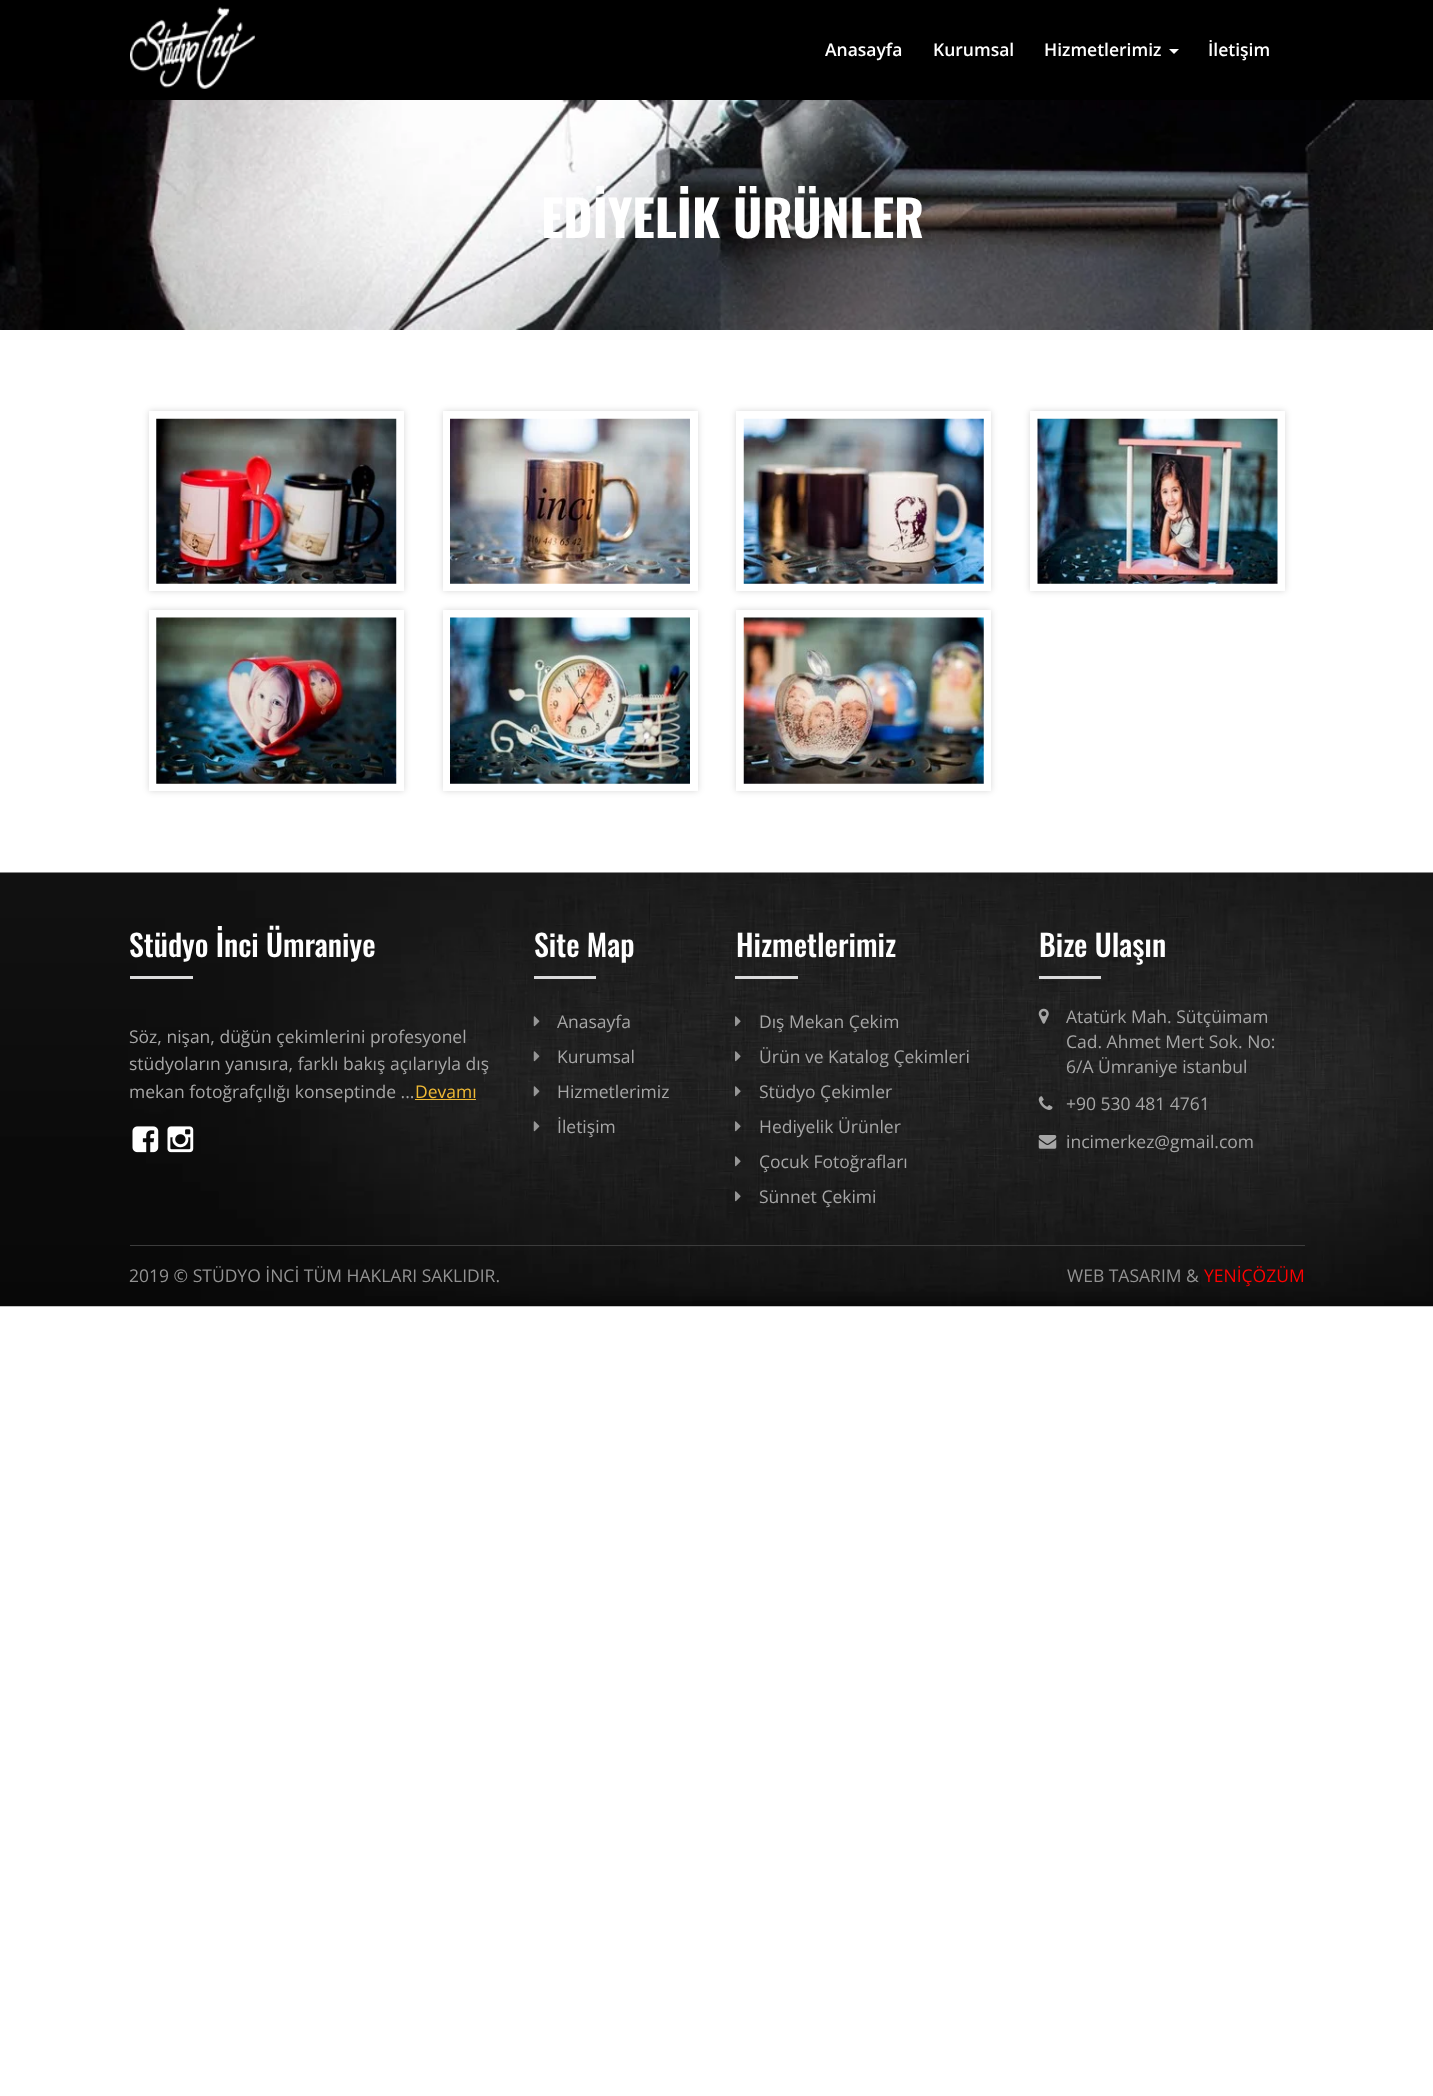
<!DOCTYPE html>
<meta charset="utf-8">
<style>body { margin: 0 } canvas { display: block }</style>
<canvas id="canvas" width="1433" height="2096"></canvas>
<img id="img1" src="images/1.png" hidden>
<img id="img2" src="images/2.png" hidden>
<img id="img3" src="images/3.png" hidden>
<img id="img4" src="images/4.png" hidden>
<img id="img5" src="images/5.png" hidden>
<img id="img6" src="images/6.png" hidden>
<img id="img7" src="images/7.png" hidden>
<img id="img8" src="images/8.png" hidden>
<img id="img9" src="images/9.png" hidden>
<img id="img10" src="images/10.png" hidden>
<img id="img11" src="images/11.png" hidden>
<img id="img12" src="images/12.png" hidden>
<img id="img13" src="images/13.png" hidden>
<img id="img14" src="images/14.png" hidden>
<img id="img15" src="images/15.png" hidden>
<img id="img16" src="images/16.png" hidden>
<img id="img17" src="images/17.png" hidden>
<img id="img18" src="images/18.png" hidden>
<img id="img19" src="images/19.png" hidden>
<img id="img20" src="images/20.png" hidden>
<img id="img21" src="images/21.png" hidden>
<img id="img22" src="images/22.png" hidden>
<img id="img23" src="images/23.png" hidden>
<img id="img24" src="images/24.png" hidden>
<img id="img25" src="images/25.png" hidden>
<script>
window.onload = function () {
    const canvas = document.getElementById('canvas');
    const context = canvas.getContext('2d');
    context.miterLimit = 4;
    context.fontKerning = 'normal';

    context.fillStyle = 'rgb(255, 255, 255)';
    context.fillRect(0, 0, 1433, 2096);
    context.fillStyle = 'rgb(0, 0, 0)';
    context.fillRect(0, 0, 1433, 100);
    context.drawImage(document.getElementById('img1'), 130, 7, 125, 82);
    context.fillStyle = 'rgb(255, 255, 255)';
    context.beginPath();
    context.moveTo(1169, 49);
    context.lineTo(1179, 49);
    context.lineTo(1174, 54);
    context.closePath();
    context.fill();
    context.drawImage(document.getElementById('img2'), 0, 100, 1433, 230);
    context.save();
    context.beginPath();
    context.moveTo(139, 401);
    context.lineTo(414, 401);
    context.lineTo(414, 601);
    context.lineTo(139, 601);
    context.closePath();
    context.moveTo(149, 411);
    context.lineTo(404, 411);
    context.lineTo(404, 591);
    context.lineTo(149, 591);
    context.closePath();
    context.clip('evenodd');
    context.fillStyle = 'rgba(0, 0, 0, 0.16)';
    context.filter = 'blur(3px)';
    context.beginPath();
    context.rect(149, 411, 255, 180);
    context.fill();
    context.filter = 'none';
    context.restore();
    context.strokeStyle = 'rgb(255, 255, 255)';
    context.strokeRect(149.5, 411.5, 254, 179);
    context.drawImage(document.getElementById('img3'), 156, 418, 241, 166);
    context.save();
    context.beginPath();
    context.moveTo(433, 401);
    context.lineTo(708, 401);
    context.lineTo(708, 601);
    context.lineTo(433, 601);
    context.closePath();
    context.moveTo(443, 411);
    context.lineTo(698, 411);
    context.lineTo(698, 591);
    context.lineTo(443, 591);
    context.closePath();
    context.clip('evenodd');
    context.fillStyle = 'rgba(0, 0, 0, 0.16)';
    context.filter = 'blur(3px)';
    context.beginPath();
    context.rect(443, 411, 255, 180);
    context.fill();
    context.filter = 'none';
    context.restore();
    context.strokeRect(443.5, 411.5, 254, 179);
    context.drawImage(document.getElementById('img4'), 450, 418, 240, 166);
    context.save();
    context.beginPath();
    context.moveTo(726, 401);
    context.lineTo(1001, 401);
    context.lineTo(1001, 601);
    context.lineTo(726, 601);
    context.closePath();
    context.moveTo(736, 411);
    context.lineTo(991, 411);
    context.lineTo(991, 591);
    context.lineTo(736, 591);
    context.closePath();
    context.clip('evenodd');
    context.fillStyle = 'rgba(0, 0, 0, 0.16)';
    context.filter = 'blur(3px)';
    context.beginPath();
    context.rect(736, 411, 255, 180);
    context.fill();
    context.filter = 'none';
    context.restore();
    context.strokeRect(736.5, 411.5, 254, 179);
    context.drawImage(document.getElementById('img5'), 743, 418, 241, 166);
    context.save();
    context.beginPath();
    context.moveTo(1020, 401);
    context.lineTo(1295, 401);
    context.lineTo(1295, 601);
    context.lineTo(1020, 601);
    context.closePath();
    context.moveTo(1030, 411);
    context.lineTo(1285, 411);
    context.lineTo(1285, 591);
    context.lineTo(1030, 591);
    context.closePath();
    context.clip('evenodd');
    context.fillStyle = 'rgba(0, 0, 0, 0.16)';
    context.filter = 'blur(3px)';
    context.beginPath();
    context.rect(1030, 411, 255, 180);
    context.fill();
    context.filter = 'none';
    context.restore();
    context.strokeRect(1030.5, 411.5, 254, 179);
    context.drawImage(document.getElementById('img6'), 1037, 418, 241, 166);
    context.save();
    context.beginPath();
    context.moveTo(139, 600);
    context.lineTo(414, 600);
    context.lineTo(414, 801);
    context.lineTo(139, 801);
    context.closePath();
    context.moveTo(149, 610);
    context.lineTo(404, 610);
    context.lineTo(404, 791);
    context.lineTo(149, 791);
    context.closePath();
    context.clip('evenodd');
    context.fillStyle = 'rgba(0, 0, 0, 0.16)';
    context.filter = 'blur(3px)';
    context.beginPath();
    context.rect(149, 610, 255, 181);
    context.fill();
    context.filter = 'none';
    context.restore();
    context.strokeRect(149.5, 610.5, 254, 180);
    context.drawImage(document.getElementById('img7'), 156, 617, 241, 167);
    context.save();
    context.beginPath();
    context.moveTo(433, 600);
    context.lineTo(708, 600);
    context.lineTo(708, 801);
    context.lineTo(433, 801);
    context.closePath();
    context.moveTo(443, 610);
    context.lineTo(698, 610);
    context.lineTo(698, 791);
    context.lineTo(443, 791);
    context.closePath();
    context.clip('evenodd');
    context.fillStyle = 'rgba(0, 0, 0, 0.16)';
    context.filter = 'blur(3px)';
    context.beginPath();
    context.rect(443, 610, 255, 181);
    context.fill();
    context.filter = 'none';
    context.restore();
    context.strokeRect(443.5, 610.5, 254, 180);
    context.drawImage(document.getElementById('img8'), 450, 617, 240, 167);
    context.save();
    context.beginPath();
    context.moveTo(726, 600);
    context.lineTo(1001, 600);
    context.lineTo(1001, 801);
    context.lineTo(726, 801);
    context.closePath();
    context.moveTo(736, 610);
    context.lineTo(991, 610);
    context.lineTo(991, 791);
    context.lineTo(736, 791);
    context.closePath();
    context.clip('evenodd');
    context.fillStyle = 'rgba(0, 0, 0, 0.16)';
    context.filter = 'blur(3px)';
    context.beginPath();
    context.rect(736, 610, 255, 181);
    context.fill();
    context.filter = 'none';
    context.restore();
    context.strokeRect(736.5, 610.5, 254, 180);
    context.drawImage(document.getElementById('img9'), 743, 617, 241, 167);
    context.drawImage(document.getElementById('img10'), 0, 872, 1433, 435);
    context.fillStyle = 'rgb(219, 219, 220)';
    context.fillRect(130, 976, 63, 3);
    context.fillStyle = 'rgb(239, 185, 53)';
    context.fillRect(415, 1099, 61, 1);
    context.drawImage(document.getElementById('img11'), 132, 1126, 27, 27);
    context.drawImage(document.getElementById('img12'), 167, 1126, 27, 27);
    context.fillStyle = 'rgb(219, 219, 220)';
    context.fillRect(534, 976, 62, 3);
    context.drawImage(document.getElementById('img13'), 533, 1016, 7, 11);
    context.drawImage(document.getElementById('img14'), 533, 1051, 7, 11);
    context.drawImage(document.getElementById('img15'), 533, 1086, 7, 11);
    context.drawImage(document.getElementById('img16'), 533, 1121, 7, 11);
    context.fillRect(735, 976, 63, 3);
    context.drawImage(document.getElementById('img17'), 735, 1016, 6, 11);
    context.drawImage(document.getElementById('img18'), 735, 1051, 6, 11);
    context.drawImage(document.getElementById('img19'), 735, 1086, 6, 11);
    context.drawImage(document.getElementById('img20'), 735, 1121, 6, 11);
    context.drawImage(document.getElementById('img21'), 735, 1156, 6, 11);
    context.drawImage(document.getElementById('img22'), 735, 1191, 6, 11);
    context.fillRect(1039, 976, 62, 3);
    context.drawImage(document.getElementById('img23'), 1038, 1008, 11, 16);
    context.drawImage(document.getElementById('img24'), 1038, 1096, 15, 14);
    context.drawImage(document.getElementById('img25'), 1038, 1135, 19, 14);
    context.fillStyle = 'rgb(60, 60, 60)';
    context.fillRect(130, 1245, 1175, 1);
    context.font = '600 17.5px Open Sans';
    context.fillStyle = 'rgb(255, 255, 255)';
    context.fillText('Anasayfa', 825, 56);
    context.fillText('Kurumsal', 933, 56);
    context.fillText('Hizmetlerimiz', 1044, 56);
    context.fillText('İletişim', 1208, 56);
    context.font = 'bold 50px Oswald';
    context.fillText('EDİYELİK ÜRÜNLER', 541, 238);
    context.font = '500 30px Oswald';
    context.fillText('Stüdyo İnci Ümraniye', 129, 957);
    context.font = '17.5px Open Sans';
    context.fillStyle = 'rgb(166, 166, 166)';
    context.fillText('Söz, nişan, düğün çekimlerini profesyonel', 129, 1043);
    context.fillText('stüdyoların yanısıra, farklı bakış açılarıyla dış', 129, 1070);
    context.fillText('mekan fotoğrafçılığı konseptinde ...', 129, 1098);
    context.fillStyle = 'rgb(239, 185, 53)';
    context.fillText('Devamı', 415, 1098);
    context.font = '500 30px Oswald';
    context.fillStyle = 'rgb(255, 255, 255)';
    context.fillText('Site Map', 534, 957);
    context.font = '17.5px Open Sans';
    context.fillStyle = 'rgb(166, 166, 166)';
    context.fillText('Anasayfa', 557, 1028);
    context.fillText('Kurumsal', 557, 1063);
    context.fillText('Hizmetlerimiz', 557, 1098);
    context.fillText('İletişim', 557, 1133);
    context.font = '500 30px Oswald';
    context.fillStyle = 'rgb(255, 255, 255)';
    context.fillText('Hizmetlerimiz', 736, 957);
    context.font = '17.5px Open Sans';
    context.fillStyle = 'rgb(166, 166, 166)';
    context.fillText('Dış Mekan Çekim', 759, 1028);
    context.fillText('Ürün ve Katalog Çekimleri', 759, 1063);
    context.fillText('Stüdyo Çekimler', 759, 1098);
    context.fillText('Hediyelik Ürünler', 759, 1133);
    context.fillText('Çocuk Fotoğrafları', 759, 1168);
    context.fillText('Sünnet Çekimi', 759, 1203);
    context.font = '500 30px Oswald';
    context.fillStyle = 'rgb(255, 255, 255)';
    context.fillText('Bize Ulaşın', 1039, 957);
    context.font = '17.5px Open Sans';
    context.fillStyle = 'rgb(166, 166, 166)';
    context.fillText('Atatürk Mah. Sütçüimam', 1066, 1023);
    context.fillText('Cad. Ahmet Mert Sok. No:', 1066, 1048);
    context.fillText('6/A Ümraniye istanbul', 1066, 1073);
    context.fillText('+90 530 481 4761', 1066, 1110);
    context.fillText('incimerkez@gmail.com', 1066, 1148);
    context.fillStyle = 'rgb(146, 146, 146)';
    context.fillText('2019 © STÜDYO İNCİ TÜM HAKLARI SAKLIDIR.', 129, 1282);
    context.fillText('WEB TASARIM &', 1067, 1282);
    context.fillStyle = 'rgb(255, 0, 0)';
    context.fillText('YENİÇÖZÜM', 1204, 1282);
};
</script>
